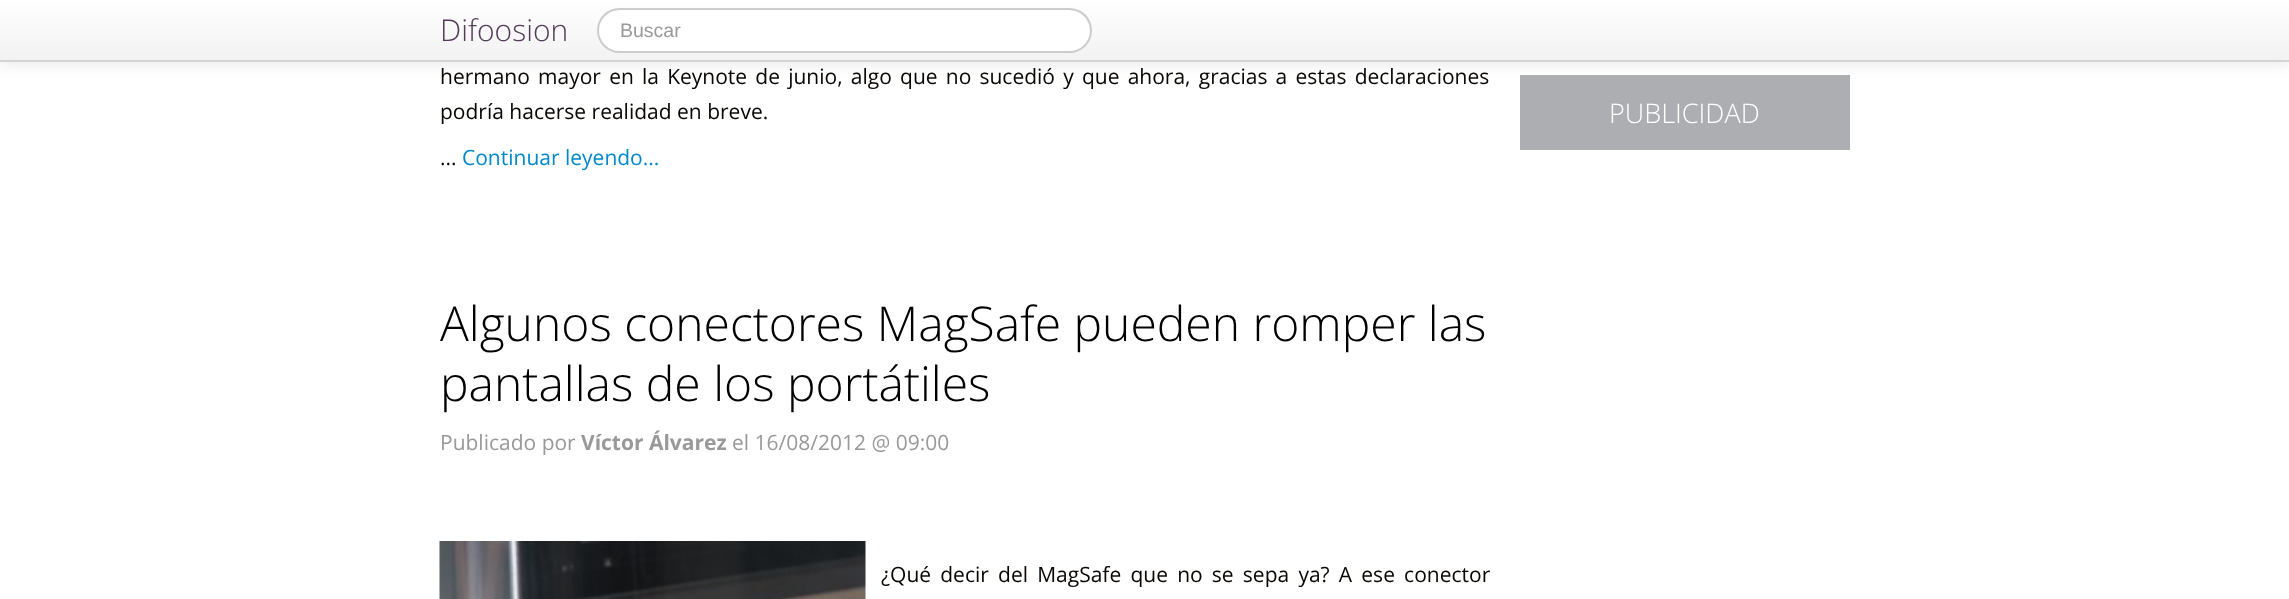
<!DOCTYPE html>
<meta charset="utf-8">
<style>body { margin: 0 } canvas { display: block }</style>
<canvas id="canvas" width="2289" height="599"></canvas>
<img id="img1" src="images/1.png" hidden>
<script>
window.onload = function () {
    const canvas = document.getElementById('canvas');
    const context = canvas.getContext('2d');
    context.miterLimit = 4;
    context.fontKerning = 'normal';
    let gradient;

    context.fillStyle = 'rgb(255, 255, 255)';
    context.fillRect(0, 0, 2289, 599);
    context.fillStyle = 'rgb(172, 174, 177)';
    context.fillRect(1520, 75, 330, 75);
    context.fillStyle = 'rgba(0, 0, 0, 0.1)';
    context.filter = 'blur(7.5px)';
    context.beginPath();
    context.rect(0, 2, 2289, 61);
    context.fill();
    context.filter = 'none';
    gradient = context.createLinearGradient(1145, 0, 1145, 60);
    gradient.addColorStop(0, 'rgb(255, 255, 255)');
    gradient.addColorStop(1, 'rgb(242, 242, 242)');
    context.fillStyle = gradient;
    context.fillRect(0, 0, 2289, 60);
    context.fillStyle = 'rgb(212, 212, 212)';
    context.fillRect(0, 60, 2289, 2);
    context.fillStyle = 'rgb(255, 255, 255)';
    context.beginPath();
    context.roundRect(597, 8, 495, 45, 22.5);
    context.fill();
    context.fillStyle = 'rgb(236, 236, 236)';
    context.beginPath();
    context.moveTo(620, 10);
    context.lineTo(1070, 10);
    context.bezierCurveTo(1081, 10, 1090, 20, 1090, 32);
    context.bezierCurveTo(1090, 35, 1089, 39, 1088, 41);
    context.bezierCurveTo(1090, 38, 1091, 34, 1091, 30);
    context.bezierCurveTo(1091, 18, 1082, 9, 1070, 9);
    context.lineTo(620, 9);
    context.bezierCurveTo(612, 9, 604, 14, 601, 21);
    context.bezierCurveTo(605, 14, 612, 10, 620, 10);
    context.closePath();
    context.fill();
    context.beginPath();
    context.roundRect(598, 9, 493, 43, 21.5);
    context.strokeStyle = 'rgb(204, 204, 204)';
    context.lineWidth = 2;
    context.stroke();
    context.drawImage(document.getElementById('img1'), 439, 541, 427, 58);
    context.font = '300 30px Open Sans';
    context.fillStyle = 'rgb(84, 58, 89)';
    context.fillText('Difoosion', 440, 41);
    context.font = '19.5px Liberation Sans';
    context.fillStyle = 'rgb(153, 153, 153)';
    context.fillText('Buscar', 620, 37);
    context.wordSpacing = '2.75px';
    context.font = '21px Open Sans';
    context.fillStyle = 'rgb(9, 6, 3)';
    context.fillText('hermano mayor en la Keynote de junio, algo que no sucedió y que ahora, gracias a estas declaraciones', 440, 84);
    context.wordSpacing = '0px';
    context.fillText('podría hacerse realidad en breve.', 440, 119);
    context.fillText('...', 440, 165);
    context.fillStyle = 'rgb(0, 136, 204)';
    context.fillText('Continuar leyendo...', 462, 165);
    context.font = '300 48px Open Sans';
    context.fillStyle = 'rgb(0, 0, 0)';
    context.fillText('Algunos conectores MagSafe pueden romper las', 440, 341);
    context.fillText('pantallas de los portátiles', 440, 401);
    context.font = '21px Open Sans';
    context.fillStyle = 'rgb(153, 153, 153)';
    context.fillText('Publicado por', 440, 450);
    context.font = 'bold 21px Open Sans';
    context.fillText('Víctor Álvarez', 581, 450);
    context.font = '21px Open Sans';
    context.fillText('el 16/08/2012 @ 09:00', 732, 450);
    context.wordSpacing = '3.75px';
    context.fillStyle = 'rgb(9, 6, 3)';
    context.fillText('¿Qué decir del MagSafe que no se sepa ya? A ese conector', 881, 582);
    context.wordSpacing = '0px';
    context.font = '300 27px Open Sans';
    context.fillStyle = 'rgb(255, 255, 255)';
    context.fillText('PUBLICIDAD', 1609, 123);
};
</script>
